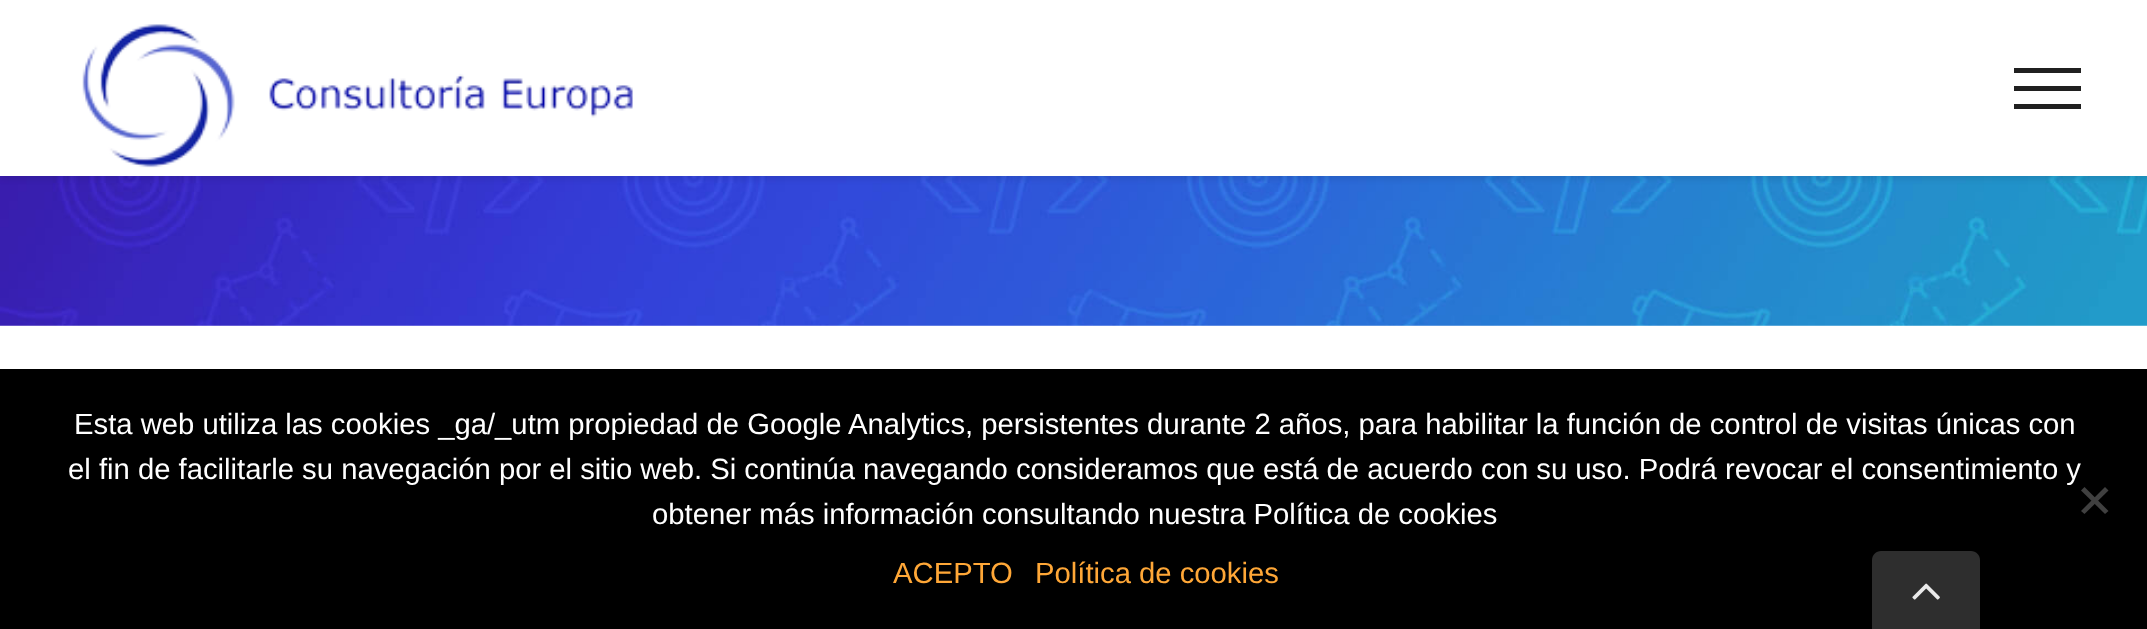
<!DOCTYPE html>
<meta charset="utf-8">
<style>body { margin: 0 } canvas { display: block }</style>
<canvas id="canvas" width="2147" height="629"></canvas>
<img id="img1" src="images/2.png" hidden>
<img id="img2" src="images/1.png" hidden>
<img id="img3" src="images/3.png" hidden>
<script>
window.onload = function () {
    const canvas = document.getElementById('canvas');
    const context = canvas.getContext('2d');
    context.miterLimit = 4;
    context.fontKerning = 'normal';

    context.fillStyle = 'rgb(255, 255, 255)';
    context.fillRect(0, 0, 2147, 629);
    context.drawImage(document.getElementById('img1'), 0, 176, 2147, 150);
    context.fillStyle = 'rgba(0, 0, 0, 0.12)';
    context.filter = 'blur(3.5px)';
    context.beginPath();
    context.rect(0, 2, 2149, 176);
    context.fill();
    context.filter = 'none';
    context.fillStyle = 'rgb(255, 255, 255)';
    context.fillRect(0, 0, 2147, 176);
    context.drawImage(document.getElementById('img2'), 82, 24, 551, 144);
    context.fillStyle = 'rgb(32, 32, 32)';
    context.fillRect(2014, 68, 67, 5);
    context.fillRect(2014, 86, 67, 5);
    context.fillRect(2014, 104, 67, 5);
    context.fillStyle = 'rgb(0, 0, 0)';
    context.fillRect(0, 369, 2147, 260);
    context.fillStyle = 'rgb(64, 64, 64)';
    context.beginPath();
    context.moveTo(2105, 487);
    context.lineTo(2108.5, 490.5);
    context.lineTo(2084.5, 514);
    context.lineTo(2081, 511);
    context.closePath();
    context.fill();
    context.beginPath();
    context.moveTo(2081, 490.5);
    context.lineTo(2084.5, 487);
    context.lineTo(2108.5, 511);
    context.lineTo(2105, 514);
    context.closePath();
    context.fill();
    context.fillStyle = 'rgb(46, 46, 46)';
    context.beginPath();
    context.moveTo(1881, 551);
    context.lineTo(1971, 551);
    context.bezierCurveTo(1976, 551, 1980, 555, 1980, 560);
    context.lineTo(1980, 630);
    context.lineTo(1872, 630);
    context.lineTo(1872, 560);
    context.bezierCurveTo(1872, 555, 1876, 551, 1881, 551);
    context.closePath();
    context.fill();
    context.drawImage(document.getElementById('img3'), 1912, 583, 28, 17);
    context.font = '29.25px Liberation Sans';
    context.fillStyle = 'rgb(255, 255, 255)';
    context.fillText('Esta web utiliza las cookies _ga/_utm propiedad de Google Analytics, persistentes durante 2 años, para habilitar la función de control de visitas únicas con', 74, 434);
    context.fillText('el fin de facilitarle su navegación por el sitio web. Si continúa navegando consideramos que está de acuerdo con su uso. Podrá revocar el consentimiento y', 68, 479);
    context.fillText('obtener más información consultando nuestra Política de cookies', 652, 524);
    context.fillStyle = 'rgb(255, 167, 55)';
    context.fillText('ACEPTO', 893, 583);
    context.fillText('Política de cookies', 1035, 583);
};
</script>
